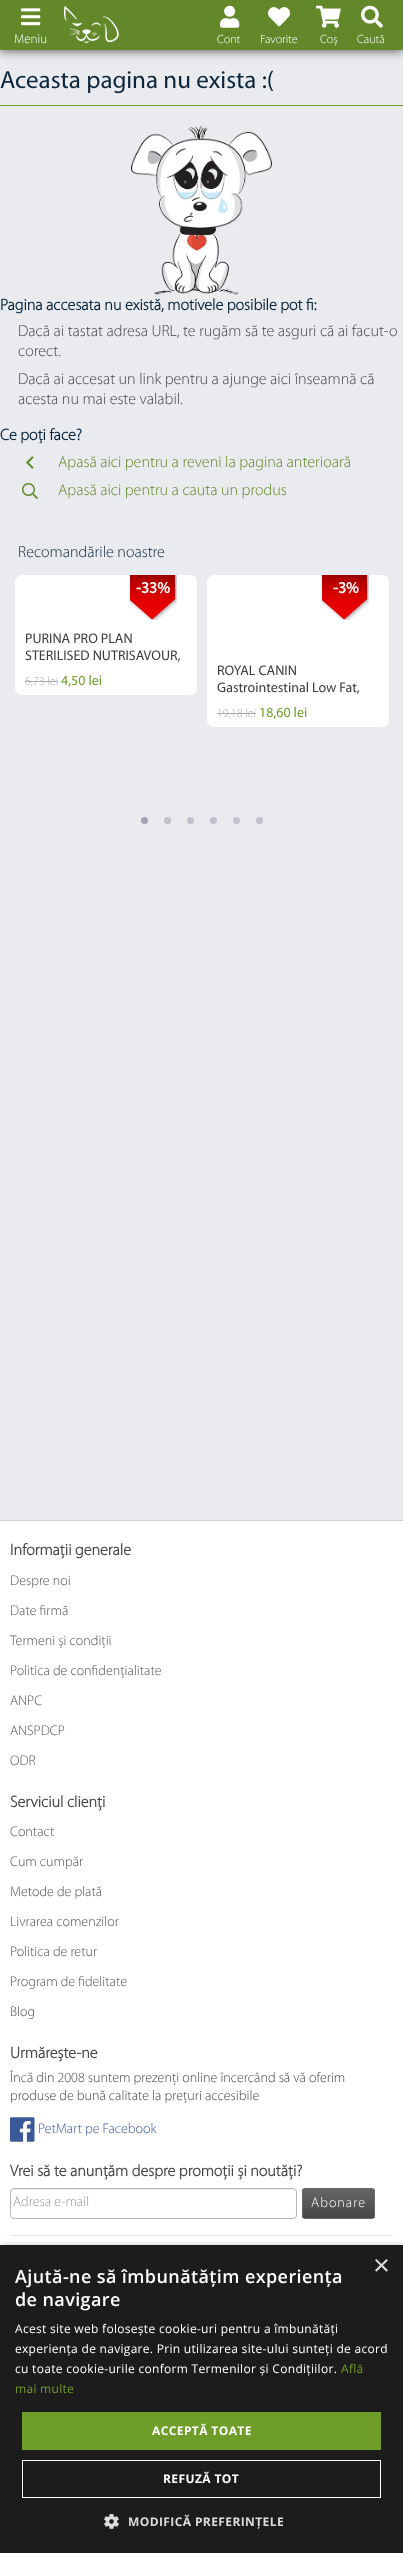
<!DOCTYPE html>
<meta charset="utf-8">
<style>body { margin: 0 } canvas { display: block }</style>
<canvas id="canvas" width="403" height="2553"></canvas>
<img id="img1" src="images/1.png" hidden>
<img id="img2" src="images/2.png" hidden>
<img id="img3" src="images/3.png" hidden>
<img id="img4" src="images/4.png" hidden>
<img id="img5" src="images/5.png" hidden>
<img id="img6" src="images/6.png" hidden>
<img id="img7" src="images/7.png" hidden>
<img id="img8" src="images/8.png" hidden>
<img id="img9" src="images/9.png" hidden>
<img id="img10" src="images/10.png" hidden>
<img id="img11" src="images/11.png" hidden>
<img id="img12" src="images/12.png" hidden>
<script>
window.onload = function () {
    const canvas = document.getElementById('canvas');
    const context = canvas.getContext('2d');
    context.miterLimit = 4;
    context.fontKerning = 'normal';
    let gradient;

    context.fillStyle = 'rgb(255, 255, 255)';
    context.fillRect(0, 0, 403, 2553);
    context.fillStyle = 'rgb(233, 235, 238)';
    context.fillRect(0, 50, 403, 1470);
    context.fillStyle = 'rgba(0, 0, 0, 0.4)';
    context.filter = 'blur(4px)';
    context.beginPath();
    context.rect(0, 3, 403, 50);
    context.fill();
    context.filter = 'none';
    context.fillStyle = 'rgba(0, 0, 0, 0.07)';
    context.filter = 'blur(2px)';
    context.beginPath();
    context.rect(0, 1, 403, 50);
    context.fill();
    context.filter = 'none';
    context.fillStyle = 'rgb(98, 136, 42)';
    context.fillRect(0, 0, 403, 50);
    context.drawImage(document.getElementById('img1'), 21, 8, 20, 18);
    context.drawImage(document.getElementById('img2'), 64, 6, 55, 37);
    context.drawImage(document.getElementById('img3'), 220, 5, 20, 23);
    context.drawImage(document.getElementById('img4'), 268, 7, 22, 20);
    context.drawImage(document.getElementById('img5'), 316, 5, 25, 23);
    context.drawImage(document.getElementById('img6'), 361, 5, 22, 23);
    context.fillStyle = 'rgb(111, 157, 42)';
    context.fillRect(0, 105, 403, 1);
    context.drawImage(document.getElementById('img7'), 131, 126, 141, 169);
    context.drawImage(document.getElementById('img8'), 26, 456, 8, 13);
    context.drawImage(document.getElementById('img9'), 22, 483, 16, 16);
    context.fillStyle = 'rgb(255, 255, 255)';
    context.beginPath();
    context.roundRect(15, 575, 182, 120, 7);
    context.fill();
    context.drawImage(document.getElementById('img10'), 130, 575, 47, 45);
    context.fillStyle = 'rgb(170, 170, 170)';
    context.fillRect(25, 681, 33, 1);
    context.fillStyle = 'rgb(255, 255, 255)';
    context.beginPath();
    context.roundRect(207, 575, 182, 152, 7);
    context.fill();
    context.drawImage(document.getElementById('img10'), 322, 575, 47, 45);
    context.fillStyle = 'rgb(170, 170, 170)';
    context.fillRect(217, 713, 39, 1);
    context.fillStyle = 'rgb(163, 164, 179)';
    context.beginPath();
    context.arc(144.5, 820.5, 3.5, 0, 2 * Math.PI);
    context.fill();
    context.fillStyle = 'rgb(192, 193, 204)';
    context.beginPath();
    context.arc(167.5, 820.5, 3.5, 0, 2 * Math.PI);
    context.fill();
    context.beginPath();
    context.arc(190.5, 820.5, 3.5, 0, 2 * Math.PI);
    context.fill();
    context.beginPath();
    context.arc(213.5, 820.5, 3.5, 0, 2 * Math.PI);
    context.fill();
    context.beginPath();
    context.arc(236.5, 820.5, 3.5, 0, 2 * Math.PI);
    context.fill();
    context.beginPath();
    context.arc(259.5, 820.5, 3.5, 0, 2 * Math.PI);
    context.fill();
    context.fillStyle = 'rgb(204, 204, 204)';
    context.fillRect(0, 1520, 403, 1);
    context.drawImage(document.getElementById('img11'), 10, 2117, 25, 25);
    context.fillStyle = 'rgb(236, 236, 236)';
    context.beginPath();
    context.moveTo(14, 2190);
    context.lineTo(293, 2190);
    context.bezierCurveTo(295, 2190, 296, 2191, 296, 2193);
    context.lineTo(296, 2192);
    context.bezierCurveTo(296, 2190, 295, 2189, 293, 2189);
    context.lineTo(14, 2189);
    context.bezierCurveTo(12, 2189, 11, 2190, 11, 2192);
    context.lineTo(11, 2193);
    context.bezierCurveTo(11, 2191, 12, 2190, 14, 2190);
    context.closePath();
    context.fill();
    context.beginPath();
    context.roundRect(10.5, 2188.5, 286, 30, 3.5);
    context.strokeStyle = 'rgb(182, 182, 182)';
    context.stroke();
    context.save();
    context.beginPath();
    context.roundRect(302, 2188, 73, 31, 3);
    context.clip();
    gradient = context.createLinearGradient(339, 2189, 339, 2218);
    gradient.addColorStop(0, 'rgb(102, 102, 102)');
    gradient.addColorStop(1, 'rgb(71, 71, 71)');
    context.fillStyle = gradient;
    context.fillRect(302, 2189, 73, 29);
    context.restore();
    context.beginPath();
    context.roundRect(302.5, 2188.5, 72, 30, 2.5);
    context.strokeStyle = 'rgb(102, 102, 102)';
    context.stroke();
    context.fillStyle = 'rgb(230, 230, 230)';
    context.fillRect(10, 2235, 383, 1);
    context.fillStyle = 'rgba(0, 0, 0, 0.35)';
    context.filter = 'blur(4px)';
    context.beginPath();
    context.rect(1, 2247, 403, 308);
    context.fill();
    context.filter = 'none';
    context.fillStyle = 'rgb(28, 28, 28)';
    context.fillRect(0, 2245, 403, 308);
    context.fillStyle = 'rgb(111, 157, 42)';
    context.fillRect(22, 2412, 359, 38);
    context.strokeStyle = 'rgb(255, 255, 255)';
    context.strokeRect(22.5, 2460.5, 358, 37);
    context.drawImage(document.getElementById('img12'), 104, 2514, 15, 15);
    context.font = '300 13px Myriad';
    context.fillStyle = 'rgb(255, 255, 255)';
    context.fillText('Meniu', 14, 43);
    context.font = '300 12px Myriad';
    context.fillText('Cont', 217, 43);
    context.fillText('Favorite', 260, 43);
    context.fillText('Coș', 320, 43);
    context.fillText('Caută', 357, 43);
    context.font = '25px Myriad';
    context.fillStyle = 'rgb(10, 38, 60)';
    context.fillText('Aceasta pagina nu exista :(', 0, 88);
    context.font = 'bold 16px Myriad';
    context.fillText('Pagina accesata nu există, motivele posibile pot fi:', 0, 310);
    context.font = '300 16px Myriad';
    context.fillStyle = 'rgb(71, 71, 71)';
    context.fillText('Dacă ai tastat adresa URL, te rugăm să te asguri că ai facut-o', 18, 336);
    context.fillText('corect.', 18, 356);
    context.fillText('Dacă ai accesat un link pentru a ajunge aici înseamnă că', 18, 384);
    context.fillText('acesta nu mai este valabil.', 18, 404);
    context.font = 'bold 16px Myriad';
    context.fillStyle = 'rgb(10, 38, 60)';
    context.fillText('Ce poți face?', 0, 440);
    context.font = '300 16px Myriad';
    context.fillStyle = 'rgb(98, 136, 42)';
    context.fillText('Apasă aici pentru a reveni la pagina anterioară', 58, 467);
    context.fillText('Apasă aici pentru a cauta un produs', 58, 495);
    context.fillStyle = 'rgb(10, 38, 60)';
    context.fillText('Recomandările noastre', 18, 557);
    context.font = 'bold 16px "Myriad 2"';
    context.fillStyle = 'rgb(255, 255, 255)';
    context.fillText('-33%', 136, 593);
    context.font = '14px Myriad';
    context.fillStyle = 'rgb(60, 60, 60)';
    context.fillText('PURINA PRO PLAN', 25, 643);
    context.fillText('STERILISED NUTRISAVOUR,', 25, 660);
    context.font = '300 12px Myriad';
    context.fillStyle = 'rgb(170, 170, 170)';
    context.fillText('6,73 lei', 25, 685);
    context.font = '14px Myriad';
    context.fillStyle = 'rgb(111, 157, 42)';
    context.fillText('4,50 lei', 61, 685);
    context.font = 'bold 16px "Myriad 2"';
    context.fillStyle = 'rgb(255, 255, 255)';
    context.fillText('-3%', 333, 593);
    context.font = '14px Myriad';
    context.fillStyle = 'rgb(60, 60, 60)';
    context.fillText('ROYAL CANIN', 217, 675);
    context.fillText('Gastrointestinal Low Fat,', 217, 692);
    context.font = '300 12px Myriad';
    context.fillStyle = 'rgb(170, 170, 170)';
    context.fillText('19,18 lei', 217, 717);
    context.font = '14px Myriad';
    context.fillStyle = 'rgb(111, 157, 42)';
    context.fillText('18,60 lei', 259, 717);
    context.font = 'bold 16px Myriad';
    context.fillStyle = 'rgb(71, 71, 71)';
    context.fillText('Informații generale', 10, 1555);
    context.font = '300 14px Myriad';
    context.fillStyle = 'rgb(85, 85, 85)';
    context.fillText('Despre noi', 10, 1585);
    context.fillText('Date firmă', 10, 1615);
    context.fillText('Termeni și condiții', 10, 1645);
    context.fillText('Politica de confidențialitate', 10, 1675);
    context.fillText('ANPC', 10, 1705);
    context.fillText('ANSPDCP', 10, 1735);
    context.fillText('ODR', 10, 1765);
    context.font = 'bold 16px Myriad';
    context.fillStyle = 'rgb(71, 71, 71)';
    context.fillText('Serviciul clienți', 10, 1807);
    context.font = '300 14px Myriad';
    context.fillStyle = 'rgb(85, 85, 85)';
    context.fillText('Contact', 10, 1836);
    context.fillText('Cum cumpăr', 10, 1866);
    context.fillText('Metode de plată', 10, 1896);
    context.fillText('Livrarea comenzilor', 10, 1926);
    context.fillText('Politica de retur', 10, 1956);
    context.fillText('Program de fidelitate', 10, 1986);
    context.fillText('Blog', 10, 2016);
    context.font = 'bold 16px Myriad';
    context.fillStyle = 'rgb(71, 71, 71)';
    context.fillText('Urmărește-ne', 10, 2058);
    context.font = '300 14px Myriad';
    context.fillText('Încă din 2008 suntem prezenți online încercând să vă oferim', 10, 2082);
    context.fillText('produse de bună calitate la prețuri accesibile', 10, 2100);
    context.fillStyle = 'rgb(59, 89, 152)';
    context.fillText('PetMart pe Facebook', 38, 2133);
    context.font = 'bold 16px Myriad';
    context.fillStyle = 'rgb(71, 71, 71)';
    context.fillText('Vrei să te anunțăm despre promoții și noutăți?', 10, 2176);
    context.font = '300 14px Myriad';
    context.fillStyle = 'rgb(153, 153, 153)';
    context.fillText('Adresa e-mail', 13, 2206);
    context.letterSpacing = '1px';
    context.fillStyle = 'rgb(255, 255, 255)';
    context.fillText('Abonare', 311, 2207);
    context.letterSpacing = '0px';
    context.font = '29px Liberation Sans';
    context.fillStyle = 'rgb(221, 221, 221)';
    context.fillText('×', 373, 2275);
    context.letterSpacing = '0.4px';
    context.font = '600 18px Open Sans';
    context.fillStyle = 'rgb(255, 255, 255)';
    context.fillText('Ajută-ne să îmbunătățim experiența', 15, 2283);
    context.fillText('de navigare', 15, 2306);
    context.letterSpacing = '0.3px';
    context.font = '12px Open Sans';
    context.fillText('Acest site web folosește cookie-uri pentru a îmbunătăți', 15, 2333);
    context.fillText('experiența de navigare. Prin utilizarea site-ului sunteți de acord', 15, 2353);
    context.fillText('cu toate cookie-urile conform Termenilor și Condițiilor.', 15, 2373);
    context.fillStyle = 'rgb(111, 157, 42)';
    context.fillText('Află', 341, 2373);
    context.fillText('mai multe', 15, 2393);
    context.letterSpacing = '0.4px';
    context.font = 'bold 12px Open Sans';
    context.fillStyle = 'rgb(255, 255, 255)';
    context.fillText('ACCEPTĂ TOATE', 152, 2435);
    context.fillText('REFUZĂ TOT', 163, 2483);
    context.fillStyle = 'rgb(221, 221, 221)';
    context.fillText('MODIFICĂ PREFERINȚELE', 128, 2526);
};
</script>
